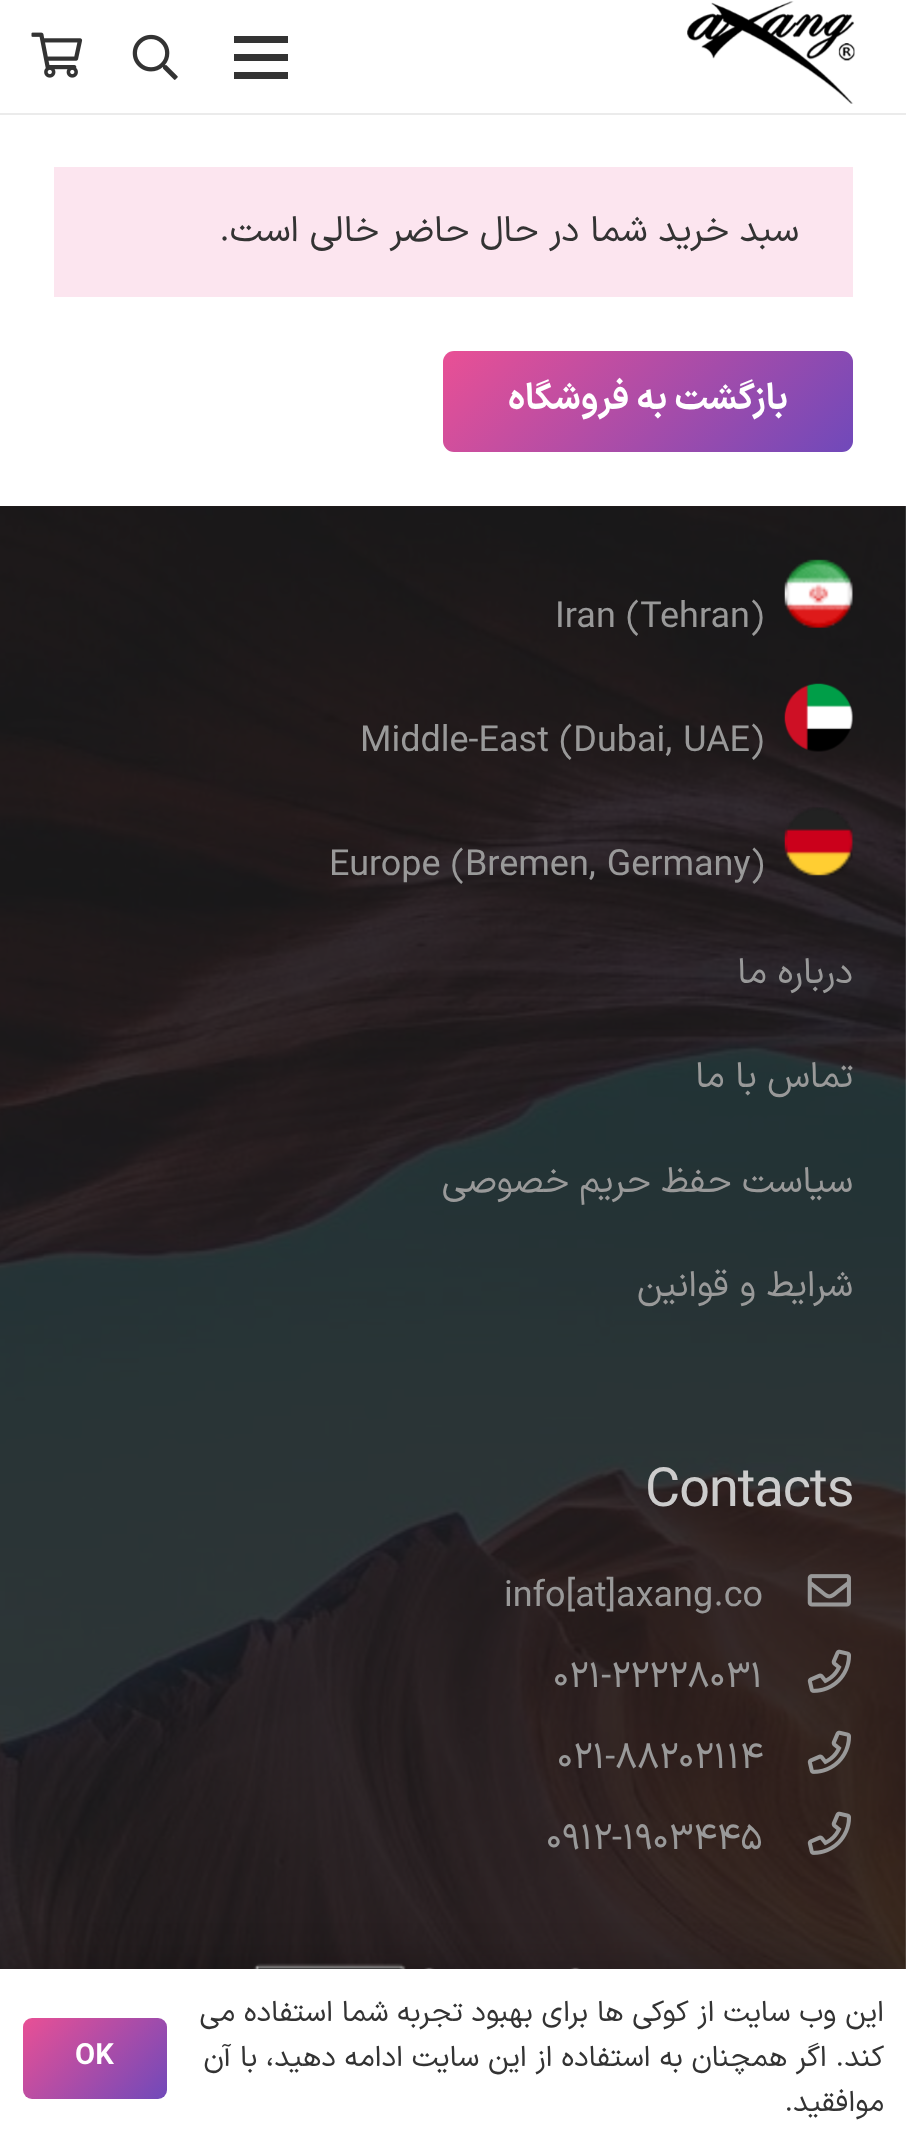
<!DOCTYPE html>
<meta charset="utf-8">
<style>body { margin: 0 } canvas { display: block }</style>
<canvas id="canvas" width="906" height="2147"></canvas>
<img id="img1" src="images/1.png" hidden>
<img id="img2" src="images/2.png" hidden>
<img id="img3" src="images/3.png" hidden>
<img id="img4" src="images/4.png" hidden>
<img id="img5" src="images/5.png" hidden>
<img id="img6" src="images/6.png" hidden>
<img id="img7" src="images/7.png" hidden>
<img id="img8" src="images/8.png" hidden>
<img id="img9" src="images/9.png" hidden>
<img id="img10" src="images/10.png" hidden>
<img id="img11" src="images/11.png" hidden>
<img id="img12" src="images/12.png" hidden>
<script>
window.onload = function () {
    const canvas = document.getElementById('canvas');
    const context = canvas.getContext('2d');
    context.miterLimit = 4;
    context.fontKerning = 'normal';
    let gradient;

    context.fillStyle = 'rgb(255, 255, 255)';
    context.fillRect(0, 0, 906, 2147);
    context.fillStyle = 'rgb(235, 235, 235)';
    context.beginPath();
    context.moveTo(0, 112);
    context.lineTo(0, 115);
    context.lineTo(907, 115);
    context.lineTo(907, 2);
    context.lineTo(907, 112);
    context.closePath();
    context.fill();
    context.fillStyle = 'rgb(255, 255, 255)';
    context.fillRect(0, 112, 906, 1);
    context.drawImage(document.getElementById('img1'), 687, 1, 168, 103);
    context.fillStyle = 'rgb(51, 51, 51)';
    context.fillRect(234, 54, 54, 7);
    context.fillRect(234, 36, 54, 7);
    context.fillRect(234, 72, 54, 7);
    context.drawImage(document.getElementById('img2'), 132, 34, 46, 46);
    context.drawImage(document.getElementById('img3'), 31, 32, 52, 46);
    context.fillStyle = 'rgb(252, 229, 239)';
    context.fillRect(54, 167, 799, 130);
    gradient = context.createLinearGradient(520, 274, 776, 529);
    gradient.addColorStop(0, 'rgb(233, 80, 149)');
    gradient.addColorStop(1, 'rgb(112, 73, 186)');
    context.fillStyle = gradient;
    context.beginPath();
    context.roundRect(443, 351, 410, 101, 11);
    context.fill();
    context.drawImage(document.getElementById('img4'), 0, 506, 906, 1463);
    context.drawImage(document.getElementById('img5'), 784, 559, 69, 69);
    context.drawImage(document.getElementById('img6'), 784, 683, 69, 69);
    context.drawImage(document.getElementById('img7'), 784, 807, 69, 69);
    context.drawImage(document.getElementById('img8'), 807, 1574, 44, 33);
    context.drawImage(document.getElementById('img9'), 807, 1649, 44, 44);
    context.drawImage(document.getElementById('img10'), 807, 1730, 44, 44);
    context.drawImage(document.getElementById('img11'), 807, 1811, 44, 44);
    context.drawImage(document.getElementById('img12'), 253, 1963, 328, 6);
    context.fillStyle = 'rgba(0, 0, 0, 0.15)';
    context.filter = 'blur(17px)';
    context.beginPath();
    context.rect(0, 1958, 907, 180);
    context.fill();
    context.filter = 'none';
    context.fillStyle = 'rgb(255, 255, 255)';
    context.fillRect(0, 1969, 906, 178);
    gradient = context.createLinearGradient(38, 2003, 151, 2115);
    gradient.addColorStop(0, 'rgb(233, 80, 149)');
    gradient.addColorStop(1, 'rgb(112, 73, 186)');
    context.fillStyle = gradient;
    context.beginPath();
    context.roundRect(23, 2018, 144, 81, 9);
    context.fill();
    context.direction = 'rtl';
    context.font = '36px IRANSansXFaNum';
    context.fillStyle = 'rgb(51, 51, 51)';
    context.fillText('سبد خرید شما در حال حاضر خالی است.', 799, 241);
    context.font = 'bold 36px IRANSansXFaNum';
    context.fillStyle = 'rgb(255, 255, 255)';
    context.fillText('بازگشت به فروشگاه', 788, 409);
    context.direction = 'ltr';
    context.font = '36px IRANSansXFaNum';
    context.fillStyle = 'rgb(153, 153, 153)';
    context.fillText('Iran (Tehran)', 555, 627);
    context.fillText('Middle-East (Dubai, UAE)', 360, 751);
    context.fillText('Europe (Bremen, Germany)', 329, 875);
    context.direction = 'rtl';
    context.fillText('درباره ما', 853, 983);
    context.fillText('تماس با ما', 853, 1087);
    context.fillText('سیاست حفظ حریم خصوصی', 853, 1192);
    context.fillText('شرایط و قوانین', 853, 1296);
    context.letterSpacing = '-1px';
    context.direction = 'ltr';
    context.font = '54px IRANSansXFaNum';
    context.fillStyle = 'rgb(204, 204, 204)';
    context.fillText('Contacts', 645, 1506);
    context.letterSpacing = '0px';
    context.font = '36px IRANSansXFaNum';
    context.fillStyle = 'rgb(153, 153, 153)';
    context.fillText('info[at]axang.co', 504, 1606);
    context.fillText('021-22228031', 553, 1687);
    context.fillText('021-88202114', 557, 1768);
    context.fillText('0912-1903445', 546, 1849);
    context.direction = 'rtl';
    context.font = '29.25px IRANSansXFaNum';
    context.fillStyle = 'rgb(51, 51, 51)';
    context.fillText('این وب سایت از کوکی ها برای بهبود تجربه شما استفاده می', 884, 2021);
    context.fillText('کند. اگر همچنان به استفاده از این سایت ادامه دهید، با آن', 884, 2066);
    context.fillText('موافقید.', 884, 2111);
    context.direction = 'ltr';
    context.font = 'bold 29.25px IRANSansXFaNum';
    context.fillStyle = 'rgb(255, 255, 255)';
    context.fillText('OK', 75, 2064);
};
</script>
